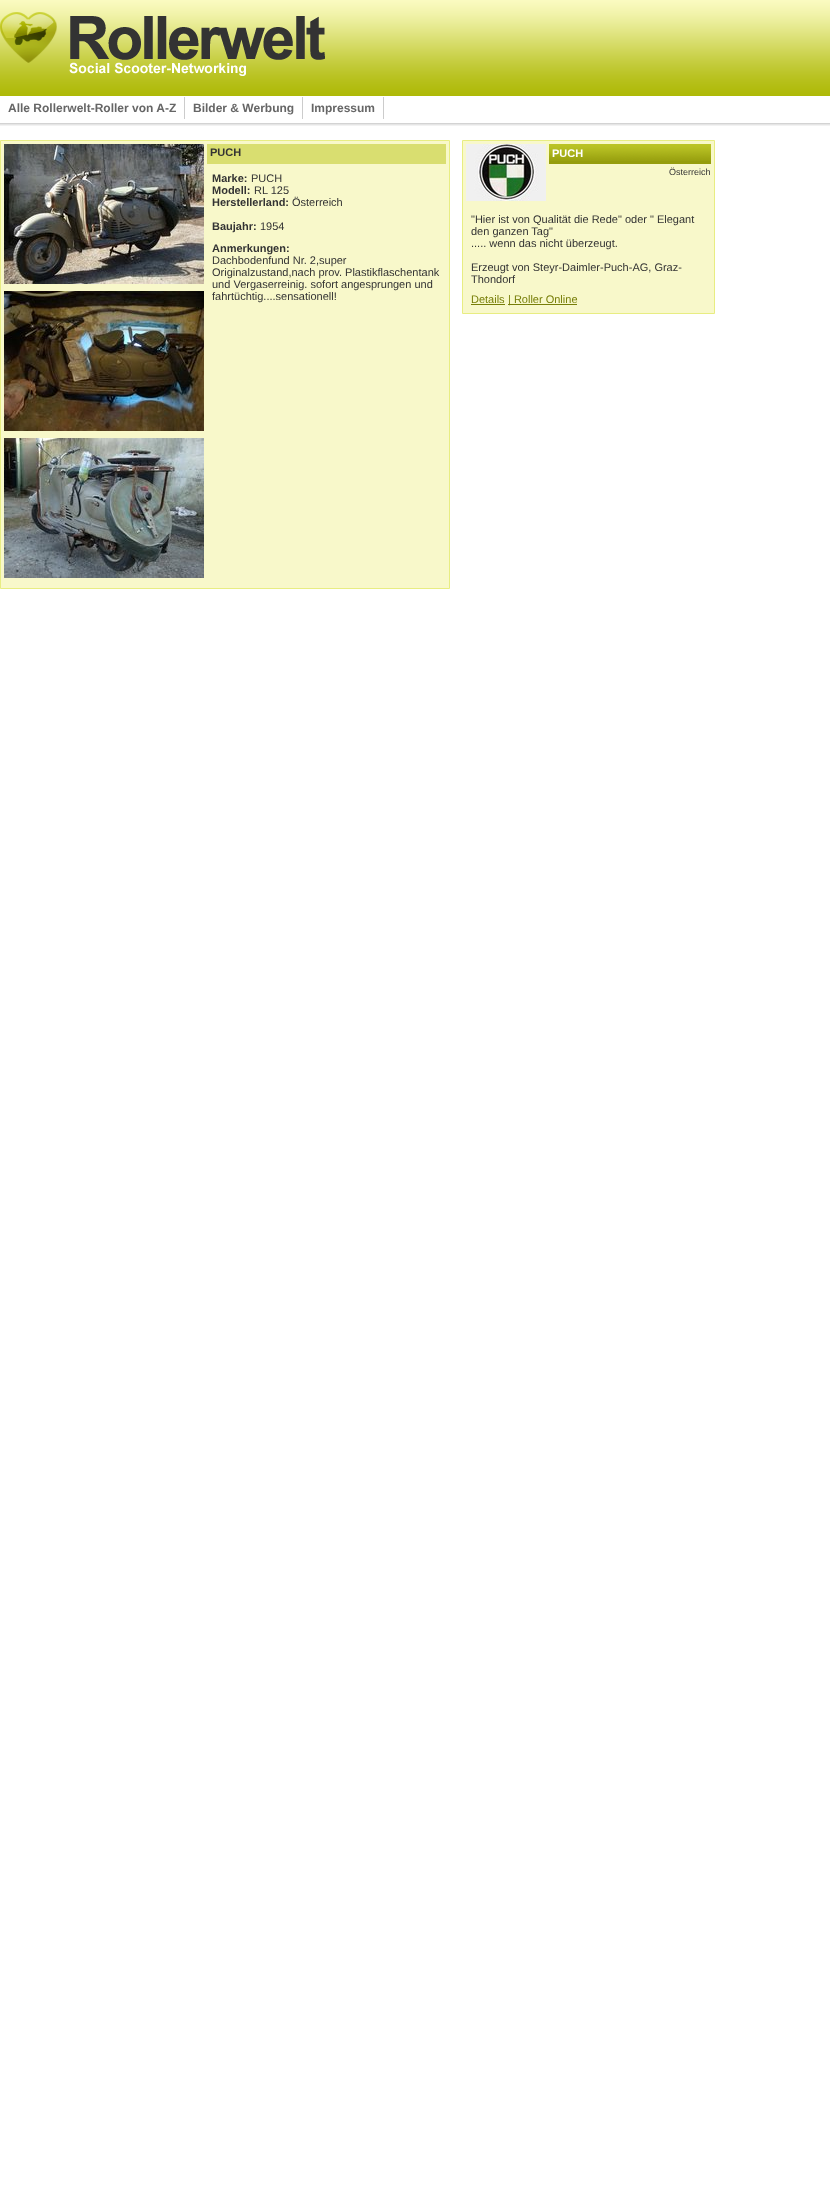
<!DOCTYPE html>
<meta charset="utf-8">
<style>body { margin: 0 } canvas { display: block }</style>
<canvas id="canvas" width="830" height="2192"></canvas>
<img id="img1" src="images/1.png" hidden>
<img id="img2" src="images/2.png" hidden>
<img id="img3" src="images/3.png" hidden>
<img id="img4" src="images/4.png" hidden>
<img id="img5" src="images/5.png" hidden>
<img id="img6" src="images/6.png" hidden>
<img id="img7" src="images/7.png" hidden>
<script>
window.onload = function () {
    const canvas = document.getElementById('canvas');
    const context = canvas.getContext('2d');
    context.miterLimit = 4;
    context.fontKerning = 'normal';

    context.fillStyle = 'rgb(255, 255, 255)';
    context.fillRect(0, 0, 830, 2192);
    context.drawImage(document.getElementById('img1'), 0, 0, 830, 126);
    context.drawImage(document.getElementById('img2'), 0, 12, 325, 64);
    context.fillStyle = 'rgb(204, 204, 204)';
    context.fillRect(184, 97, 1, 22);
    context.fillRect(302, 97, 1, 22);
    context.fillRect(383, 97, 1, 22);
    context.fillStyle = 'rgb(248, 248, 202)';
    context.beginPath();
    context.rect(0.5, 140.5, 449, 448);
    context.fill();
    context.strokeStyle = 'rgb(232, 237, 130)';
    context.stroke();
    context.drawImage(document.getElementById('img3'), 4, 144, 200, 140);
    context.drawImage(document.getElementById('img4'), 4, 291, 200, 140);
    context.drawImage(document.getElementById('img5'), 4, 438, 200, 140);
    context.fillStyle = 'rgb(217, 222, 112)';
    context.fillRect(207, 144, 239, 20);
    context.fillStyle = 'rgb(248, 248, 202)';
    context.beginPath();
    context.rect(462.5, 140.5, 252, 173);
    context.fill();
    context.stroke();
    context.drawImage(document.getElementById('img6'), 466, 144, 80, 57);
    context.fillStyle = 'rgb(149, 157, 13)';
    context.fillRect(549, 161, 162, 3);
    context.drawImage(document.getElementById('img7'), 549, 144, 162, 17);
    context.fillStyle = 'rgb(119, 126, 8)';
    context.fillRect(471, 304, 34, 1);
    context.fillRect(508, 304, 69, 1);
    context.font = 'bold 12px Liberation Sans';
    context.fillStyle = 'rgb(102, 102, 102)';
    context.fillText('Alle Rollerwelt-Roller von A-Z', 8, 112);
    context.fillText('Bilder & Werbung', 193, 112);
    context.fillText('Impressum', 311, 112);
    context.font = 'bold 11px Liberation Sans';
    context.fillStyle = 'rgb(51, 51, 51)';
    context.fillText('PUCH', 210, 156);
    context.fillText('Marke:', 212, 182);
    context.font = '11px Liberation Sans';
    context.fillText('PUCH', 251, 182);
    context.font = 'bold 11px Liberation Sans';
    context.fillText('Modell:', 212, 194);
    context.font = '11px Liberation Sans';
    context.fillText('RL 125', 254, 194);
    context.font = 'bold 11px Liberation Sans';
    context.fillText('Herstellerland:', 212, 206);
    context.font = '11px Liberation Sans';
    context.fillText('Österreich', 292, 206);
    context.font = 'bold 11px Liberation Sans';
    context.fillText('Baujahr:', 212, 230);
    context.font = '11px Liberation Sans';
    context.fillText('1954', 260, 230);
    context.font = 'bold 11px Liberation Sans';
    context.fillText('Anmerkungen:', 212, 252);
    context.font = '11px Liberation Sans';
    context.fillText('Dachbodenfund Nr. 2,super', 212, 264);
    context.fillText('Originalzustand,nach prov. Plastikflaschentank', 212, 276);
    context.fillText('und Vergaserreinig. sofort angesprungen und', 212, 288);
    context.fillText('fahrtüchtig....sensationell!', 212, 300);
    context.font = 'bold 11px Liberation Sans';
    context.fillStyle = 'rgb(255, 255, 255)';
    context.fillText('PUCH', 552, 157);
    context.font = '9px Liberation Sans';
    context.fillStyle = 'rgb(51, 51, 51)';
    context.fillText('Österreich', 669, 175);
    context.font = '11px Liberation Sans';
    context.fillText('"Hier ist von Qualität die Rede" oder " Elegant', 471, 223);
    context.fillText('den ganzen Tag"', 471, 235);
    context.fillText('..... wenn das nicht überzeugt.', 471, 247);
    context.fillText('Erzeugt von Steyr-Daimler-Puch-AG, Graz-', 471, 271);
    context.fillText('Thondorf', 471, 283);
    context.fillStyle = 'rgb(119, 126, 8)';
    context.fillText('Details', 471, 303);
    context.fillText('| Roller Online', 508, 303);
};
</script>
